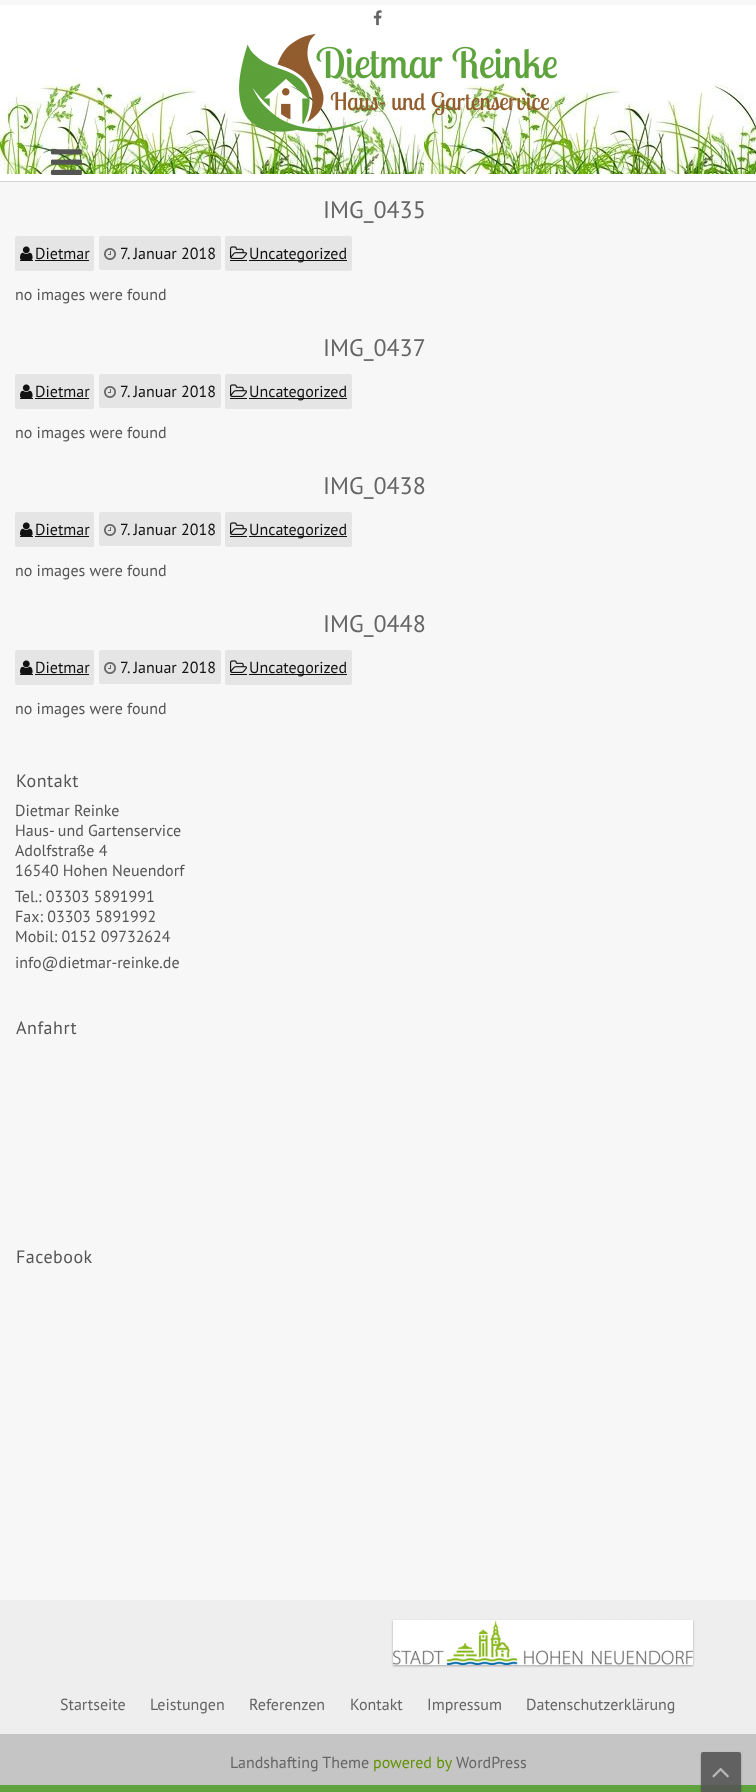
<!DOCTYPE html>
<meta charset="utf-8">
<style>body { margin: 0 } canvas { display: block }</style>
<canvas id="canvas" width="756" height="1792"></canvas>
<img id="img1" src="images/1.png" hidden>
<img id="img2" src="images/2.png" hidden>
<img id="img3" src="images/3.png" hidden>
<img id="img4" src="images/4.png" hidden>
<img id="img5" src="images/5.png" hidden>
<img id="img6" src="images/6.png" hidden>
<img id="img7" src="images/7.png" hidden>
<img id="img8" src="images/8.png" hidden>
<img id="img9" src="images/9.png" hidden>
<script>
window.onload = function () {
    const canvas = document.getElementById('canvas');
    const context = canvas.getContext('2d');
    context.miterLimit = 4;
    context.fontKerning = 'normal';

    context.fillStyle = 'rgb(94, 163, 61)';
    context.fillRect(0, 0, 756, 1792);
    context.fillStyle = 'rgb(247, 247, 247)';
    context.fillRect(0, 0, 756, 1600);
    context.drawImage(document.getElementById('img1'), 0, 5, 756, 176);
    context.fillStyle = 'rgb(213, 213, 213)';
    context.fillRect(0, 181, 756, 1);
    context.drawImage(document.getElementById('img2'), 373, 10, 9, 16);
    context.drawImage(document.getElementById('img3'), 239, 33, 318, 99);
    context.drawImage(document.getElementById('img4'), 51, 149, 31, 26);
    context.fillStyle = 'rgb(229, 229, 229)';
    context.beginPath();
    context.roundRect(15, 236, 79, 35, 2);
    context.fill();
    context.drawImage(document.getElementById('img5'), 20, 246, 13, 14);
    context.fillStyle = 'rgb(17, 17, 17)';
    context.fillRect(35, 260, 54, 1);
    context.fillRect(20, 260, 13, 1);
    context.fillStyle = 'rgb(229, 229, 229)';
    context.beginPath();
    context.roundRect(99, 236, 122, 34, 2);
    context.fill();
    context.drawImage(document.getElementById('img6'), 104, 248, 12, 12);
    context.beginPath();
    context.roundRect(225, 236, 127, 35, 2);
    context.fill();
    context.drawImage(document.getElementById('img7'), 230, 246, 17, 13);
    context.fillStyle = 'rgb(17, 17, 17)';
    context.fillRect(249, 260, 98, 1);
    context.fillRect(230, 260, 17, 1);
    context.fillStyle = 'rgb(229, 229, 229)';
    context.beginPath();
    context.roundRect(15, 374, 79, 35, 2);
    context.fill();
    context.drawImage(document.getElementById('img5'), 20, 384, 13, 14);
    context.fillStyle = 'rgb(17, 17, 17)';
    context.fillRect(35, 398, 54, 1);
    context.fillRect(20, 398, 13, 1);
    context.fillStyle = 'rgb(229, 229, 229)';
    context.beginPath();
    context.roundRect(99, 374, 122, 34, 2);
    context.fill();
    context.drawImage(document.getElementById('img6'), 104, 386, 12, 12);
    context.beginPath();
    context.roundRect(225, 374, 127, 35, 2);
    context.fill();
    context.drawImage(document.getElementById('img7'), 230, 384, 17, 13);
    context.fillStyle = 'rgb(17, 17, 17)';
    context.fillRect(249, 398, 98, 1);
    context.fillRect(230, 398, 17, 1);
    context.fillStyle = 'rgb(229, 229, 229)';
    context.beginPath();
    context.roundRect(15, 512, 79, 35, 2);
    context.fill();
    context.drawImage(document.getElementById('img5'), 20, 522, 13, 14);
    context.fillStyle = 'rgb(17, 17, 17)';
    context.fillRect(35, 536, 54, 1);
    context.fillRect(20, 536, 13, 1);
    context.fillStyle = 'rgb(229, 229, 229)';
    context.beginPath();
    context.roundRect(99, 512, 122, 34, 2);
    context.fill();
    context.drawImage(document.getElementById('img6'), 104, 524, 12, 12);
    context.beginPath();
    context.roundRect(225, 512, 127, 35, 2);
    context.fill();
    context.drawImage(document.getElementById('img7'), 230, 522, 17, 13);
    context.fillStyle = 'rgb(17, 17, 17)';
    context.fillRect(249, 536, 98, 1);
    context.fillRect(230, 536, 17, 1);
    context.fillStyle = 'rgb(229, 229, 229)';
    context.beginPath();
    context.roundRect(15, 650, 79, 35, 2);
    context.fill();
    context.drawImage(document.getElementById('img5'), 20, 660, 13, 14);
    context.fillStyle = 'rgb(17, 17, 17)';
    context.fillRect(35, 674, 54, 1);
    context.fillRect(20, 674, 13, 1);
    context.fillStyle = 'rgb(229, 229, 229)';
    context.beginPath();
    context.roundRect(99, 650, 122, 34, 2);
    context.fill();
    context.drawImage(document.getElementById('img6'), 104, 662, 12, 12);
    context.beginPath();
    context.roundRect(225, 650, 127, 35, 2);
    context.fill();
    context.drawImage(document.getElementById('img7'), 230, 660, 17, 13);
    context.fillStyle = 'rgb(17, 17, 17)';
    context.fillRect(249, 674, 98, 1);
    context.fillRect(230, 674, 17, 1);
    context.fillStyle = 'rgb(238, 238, 238)';
    context.fillRect(0, 1600, 756, 134);
    context.fillStyle = 'rgba(0, 0, 0, 0.3)';
    context.filter = 'blur(1px)';
    context.beginPath();
    context.rect(393, 1621, 300, 45);
    context.fill();
    context.filter = 'none';
    context.drawImage(document.getElementById('img8'), 393, 1620, 300, 45);
    context.fillStyle = 'rgb(197, 197, 197)';
    context.fillRect(0, 1734, 756, 51);
    context.save();
    context.beginPath();
    context.moveTo(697, 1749);
    context.lineTo(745, 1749);
    context.lineTo(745, 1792);
    context.lineTo(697, 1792);
    context.closePath();
    context.moveTo(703, 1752);
    context.lineTo(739, 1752);
    context.bezierCurveTo(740, 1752, 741, 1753, 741, 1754);
    context.lineTo(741, 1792);
    context.lineTo(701, 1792);
    context.lineTo(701, 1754);
    context.bezierCurveTo(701, 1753, 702, 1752, 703, 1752);
    context.closePath();
    context.clip('evenodd');
    context.fillStyle = 'rgba(0, 0, 0, 0.23)';
    context.filter = 'blur(1px)';
    context.beginPath();
    context.roundRect(701, 1753, 40, 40, 2);
    context.fill();
    context.filter = 'none';
    context.restore();
    context.fillStyle = 'rgba(85, 85, 85, 0.9)';
    context.beginPath();
    context.roundRect(701, 1752, 40, 40, [2, 2, 0, 0]);
    context.fill();
    context.drawImage(document.getElementById('img9'), 712, 1767, 17, 11);
    context.font = '24px PT Sans';
    context.fillStyle = 'rgb(101, 101, 101)';
    context.fillText('IMG_0435', 323, 218);
    context.font = '16px PT Sans';
    context.fillStyle = 'rgb(17, 17, 17)';
    context.fillText('Dietmar', 35, 259);
    context.fillText('7. Januar 2018', 120, 259);
    context.fillText('Uncategorized', 249, 259);
    context.fillStyle = 'rgb(85, 85, 85)';
    context.fillText('no images were found', 15, 300);
    context.font = '24px PT Sans';
    context.fillStyle = 'rgb(101, 101, 101)';
    context.fillText('IMG_0437', 323, 356);
    context.font = '16px PT Sans';
    context.fillStyle = 'rgb(17, 17, 17)';
    context.fillText('Dietmar', 35, 397);
    context.fillText('7. Januar 2018', 120, 397);
    context.fillText('Uncategorized', 249, 397);
    context.fillStyle = 'rgb(85, 85, 85)';
    context.fillText('no images were found', 15, 438);
    context.font = '24px PT Sans';
    context.fillStyle = 'rgb(101, 101, 101)';
    context.fillText('IMG_0438', 323, 494);
    context.font = '16px PT Sans';
    context.fillStyle = 'rgb(17, 17, 17)';
    context.fillText('Dietmar', 35, 535);
    context.fillText('7. Januar 2018', 120, 535);
    context.fillText('Uncategorized', 249, 535);
    context.fillStyle = 'rgb(85, 85, 85)';
    context.fillText('no images were found', 15, 576);
    context.font = '24px PT Sans';
    context.fillStyle = 'rgb(101, 101, 101)';
    context.fillText('IMG_0448', 323, 632);
    context.font = '16px PT Sans';
    context.fillStyle = 'rgb(17, 17, 17)';
    context.fillText('Dietmar', 35, 673);
    context.fillText('7. Januar 2018', 120, 673);
    context.fillText('Uncategorized', 249, 673);
    context.fillStyle = 'rgb(85, 85, 85)';
    context.fillText('no images were found', 15, 714);
    context.letterSpacing = '0.5px';
    context.font = '18px PT Sans';
    context.fillText('Kontakt', 16, 787);
    context.letterSpacing = '0px';
    context.font = '16px PT Sans';
    context.fillText('Dietmar Reinke', 15, 816);
    context.fillText('Haus- und Gartenservice', 15, 836);
    context.fillText('Adolfstraße 4', 15, 856);
    context.fillText('16540 Hohen Neuendorf', 15, 876);
    context.fillText('Tel.: 03303 5891991', 15, 902);
    context.fillText('Fax: 03303 5891992', 15, 922);
    context.fillText('Mobil: 0152 09732624', 15, 942);
    context.fillText('info@dietmar-reinke.de', 15, 968);
    context.letterSpacing = '0.5px';
    context.font = '18px PT Sans';
    context.fillText('Anfahrt', 16, 1034);
    context.fillText('Facebook', 16, 1263);
    context.letterSpacing = '0px';
    context.font = '16px PT Sans';
    context.fillStyle = 'rgb(101, 101, 101)';
    context.fillText('Startseite', 60, 1710);
    context.fillText('Leistungen', 150, 1710);
    context.fillText('Referenzen', 249, 1710);
    context.fillText('Kontakt', 350, 1710);
    context.fillText('Impressum', 427, 1710);
    context.fillText('Datenschutzerklärung', 526, 1710);
    context.fillText('Landshafting Theme', 230, 1768);
    context.fillStyle = 'rgb(99, 146, 0)';
    context.fillText('powered by', 373, 1768);
    context.fillStyle = 'rgb(101, 101, 101)';
    context.fillText('WordPress', 456, 1768);
};
</script>
